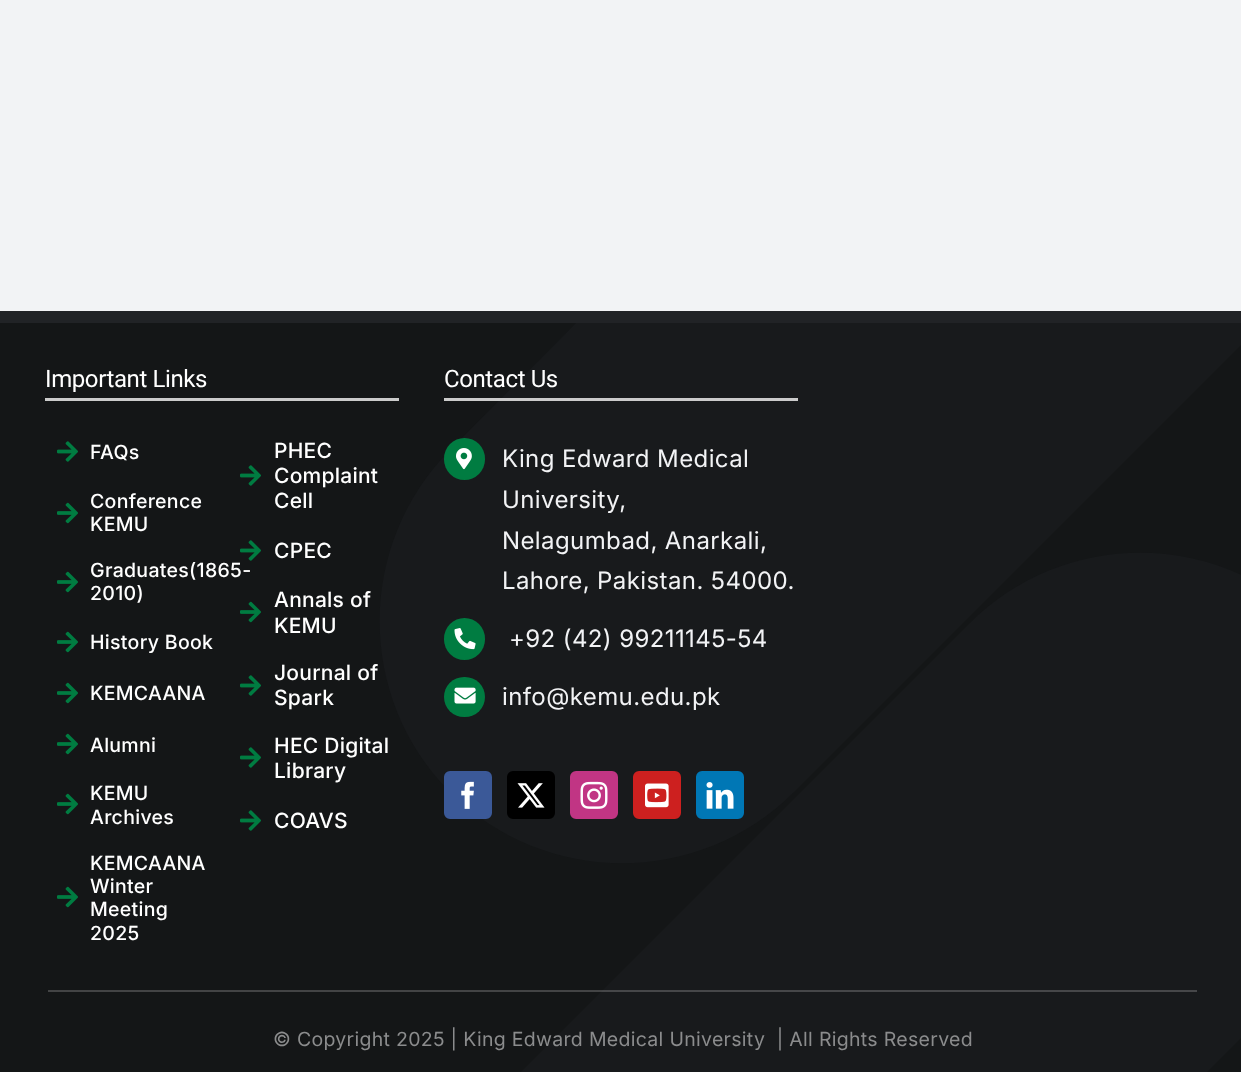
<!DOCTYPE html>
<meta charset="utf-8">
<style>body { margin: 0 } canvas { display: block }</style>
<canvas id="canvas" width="1241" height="1072"></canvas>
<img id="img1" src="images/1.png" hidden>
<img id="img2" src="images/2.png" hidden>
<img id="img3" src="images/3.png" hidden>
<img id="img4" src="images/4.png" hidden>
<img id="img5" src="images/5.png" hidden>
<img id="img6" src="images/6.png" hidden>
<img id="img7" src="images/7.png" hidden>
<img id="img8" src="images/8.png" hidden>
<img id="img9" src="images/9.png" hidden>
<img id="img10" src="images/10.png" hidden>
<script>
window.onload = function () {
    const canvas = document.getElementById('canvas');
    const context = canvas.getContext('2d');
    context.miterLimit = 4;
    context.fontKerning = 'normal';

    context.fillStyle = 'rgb(242, 243, 245)';
    context.fillRect(0, 0, 1241, 1072);
    context.fillStyle = 'rgb(20, 22, 23)';
    context.fillRect(0, 323, 1241, 749);
    context.fillStyle = 'rgb(33, 35, 38)';
    context.fillRect(0, 311, 1241, 12);
    context.save();
    context.beginPath();
    context.rect(0, 323, 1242, 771);
    context.clip();
    context.fillStyle = 'rgb(24, 26, 28)';
    context.beginPath();
    context.moveTo(1185, 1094);
    context.lineTo(499, 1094);
    context.lineTo(969, 624);
    context.bezierCurveTo(1063, 529, 1217, 529, 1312, 624);
    context.bezierCurveTo(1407, 719, 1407, 872, 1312, 967);
    context.closePath();
    context.moveTo(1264, 322);
    context.lineTo(794, 792);
    context.bezierCurveTo(699, 887, 545, 887, 450, 792);
    context.bezierCurveTo(356, 698, 356, 544, 451, 449);
    context.lineTo(577, 322);
    context.closePath();
    context.fill('evenodd');
    context.restore();
    context.fillStyle = 'rgb(203, 203, 203)';
    context.fillRect(45, 398, 354, 3);
    context.drawImage(document.getElementById('img1'), 57, 441, 21, 21);
    context.drawImage(document.getElementById('img2'), 57, 502, 21, 22);
    context.drawImage(document.getElementById('img2'), 57, 571, 21, 22);
    context.drawImage(document.getElementById('img2'), 57, 631, 21, 22);
    context.drawImage(document.getElementById('img2'), 57, 682, 21, 22);
    context.drawImage(document.getElementById('img2'), 57, 733, 21, 22);
    context.drawImage(document.getElementById('img2'), 57, 793, 21, 22);
    context.drawImage(document.getElementById('img2'), 57, 886, 21, 22);
    context.drawImage(document.getElementById('img1'), 240, 465, 21, 21);
    context.drawImage(document.getElementById('img1'), 240, 540, 21, 21);
    context.drawImage(document.getElementById('img2'), 240, 601, 21, 22);
    context.drawImage(document.getElementById('img1'), 240, 675, 21, 21);
    context.drawImage(document.getElementById('img1'), 240, 747, 21, 21);
    context.drawImage(document.getElementById('img1'), 240, 810, 21, 21);
    context.fillRect(444, 398, 354, 3);
    context.fillStyle = 'rgb(0, 124, 65)';
    context.beginPath();
    context.roundRect(444, 438, 41, 42, 20.5);
    context.fill();
    context.drawImage(document.getElementById('img3'), 456, 448, 16, 22);
    context.beginPath();
    context.roundRect(444, 618, 41, 42, 20.5);
    context.fill();
    context.drawImage(document.getElementById('img4'), 454, 628, 22, 22);
    context.beginPath();
    context.roundRect(444, 677, 41, 40, 20);
    context.fill();
    context.drawImage(document.getElementById('img5'), 454, 687, 22, 17);
    context.fillStyle = 'rgb(59, 89, 152)';
    context.beginPath();
    context.roundRect(445, 772, 46, 46, 5);
    context.fill();
    context.strokeStyle = 'rgb(59, 89, 152)';
    context.lineWidth = 2;
    context.stroke();
    context.drawImage(document.getElementById('img6'), 461, 781, 13, 28);
    context.fillStyle = 'rgb(0, 0, 0)';
    context.beginPath();
    context.roundRect(508, 772, 46, 46, 5);
    context.fill();
    context.strokeStyle = 'rgb(0, 0, 0)';
    context.stroke();
    context.drawImage(document.getElementById('img7'), 517, 783, 28, 25);
    context.fillStyle = 'rgb(193, 53, 132)';
    context.beginPath();
    context.roundRect(571, 772, 46, 46, 5);
    context.fill();
    context.strokeStyle = 'rgb(193, 53, 132)';
    context.stroke();
    context.drawImage(document.getElementById('img8'), 580, 781, 28, 28);
    context.fillStyle = 'rgb(205, 32, 31)';
    context.beginPath();
    context.roundRect(634, 772, 46, 46, 5);
    context.fill();
    context.strokeStyle = 'rgb(205, 32, 31)';
    context.stroke();
    context.drawImage(document.getElementById('img9'), 645, 783, 24, 25);
    context.fillStyle = 'rgb(0, 119, 181)';
    context.beginPath();
    context.roundRect(697, 772, 46, 46, 5);
    context.fill();
    context.strokeStyle = 'rgb(0, 119, 181)';
    context.stroke();
    context.drawImage(document.getElementById('img10'), 706, 782, 28, 27);
    context.fillStyle = 'rgba(255, 255, 255, 0.2)';
    context.fillRect(48, 990, 1149, 2);
    context.letterSpacing = '-0.4px';
    context.font = '24px Roboto';
    context.fillStyle = 'rgb(255, 255, 255)';
    context.fillText('Important Links', 45, 387);
    context.letterSpacing = '0.3px';
    context.font = '500 19.5px Inter';
    context.fillText('FAQs', 90, 459);
    context.fillText('Conference', 90, 508);
    context.fillText('KEMU', 90, 531);
    context.fillText('Graduates(1865-', 90, 577);
    context.fillText('2010)', 90, 600);
    context.fillText('History Book', 90, 649);
    context.fillText('KEMCAANA', 90, 700);
    context.fillText('Alumni', 90, 752);
    context.fillText('KEMU', 90, 800);
    context.fillText('Archives', 90, 824);
    context.fillText('KEMCAANA', 90, 870);
    context.fillText('Winter', 90, 893);
    context.fillText('Meeting', 90, 916);
    context.fillText('2025', 90, 940);
    context.letterSpacing = '0.25px';
    context.font = '500 21px Inter';
    context.fillText('PHEC', 274, 458);
    context.fillText('Complaint', 274, 483);
    context.fillText('Cell', 274, 508);
    context.fillText('CPEC', 274, 558);
    context.fillText('Annals of', 274, 607);
    context.fillText('KEMU', 274, 633);
    context.fillText('Journal of', 274, 680);
    context.fillText('Spark', 274, 705);
    context.fillText('HEC Digital', 274, 753);
    context.fillText('Library', 274, 778);
    context.fillText('COAVS', 274, 828);
    context.letterSpacing = '-0.4px';
    context.font = '24px Roboto';
    context.fillText('Contact Us', 444, 387);
    context.letterSpacing = '0.4px';
    context.font = '24px Inter';
    context.fillStyle = 'rgb(242, 243, 245)';
    context.fillText('King Edward Medical', 502, 467);
    context.fillText('University,', 502, 508);
    context.fillText('Nelagumbad, Anarkali,', 502, 549);
    context.fillText('Lahore, Pakistan. 54000.', 502, 589);
    context.fillText('+92 (42) 99211145-54', 509, 647);
    context.fillText('info@kemu.edu.pk', 502, 705);
    context.letterSpacing = '0.3px';
    context.font = '19.5px Inter';
    context.fillStyle = 'rgb(139, 140, 141)';
    context.fillText('© Copyright 2025 | King Edward Medical University  | All Rights Reserved', 273, 1046);
};
</script>
